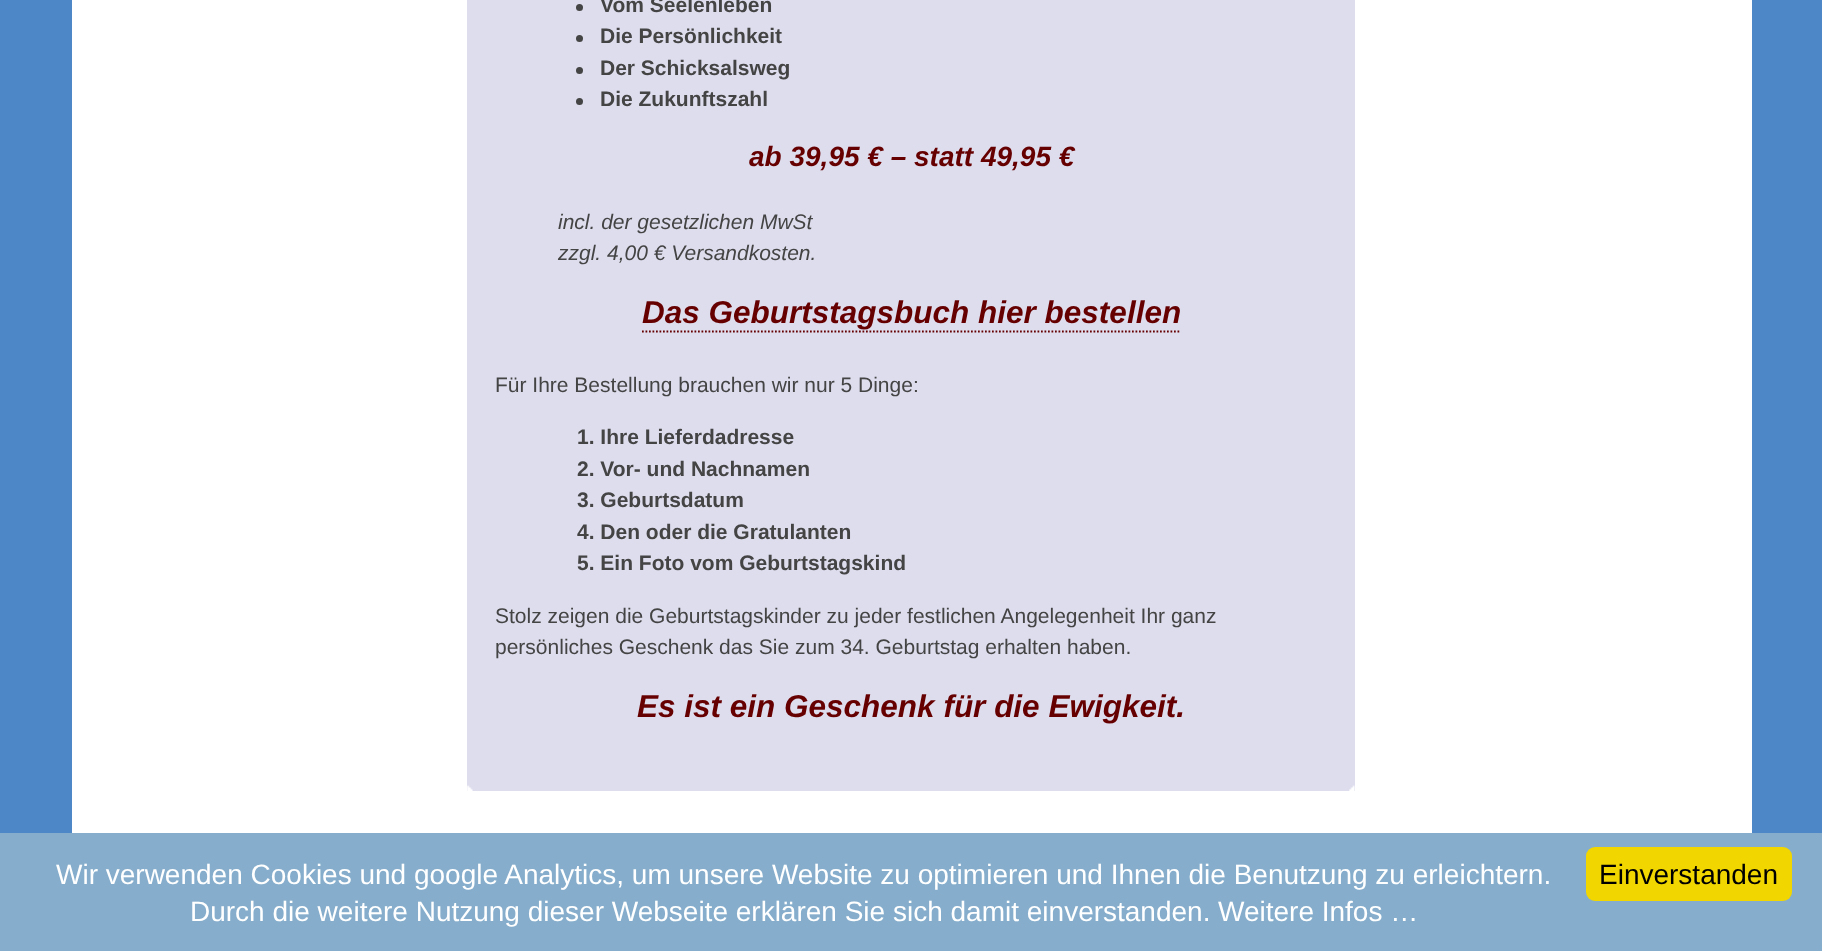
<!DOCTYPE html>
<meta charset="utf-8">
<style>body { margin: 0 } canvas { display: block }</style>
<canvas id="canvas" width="1822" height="951"></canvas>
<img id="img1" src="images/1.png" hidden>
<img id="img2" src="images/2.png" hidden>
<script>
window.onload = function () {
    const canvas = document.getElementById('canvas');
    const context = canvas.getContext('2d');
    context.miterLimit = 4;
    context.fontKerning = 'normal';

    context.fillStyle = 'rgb(77, 135, 199)';
    context.fillRect(0, 0, 1822, 951);
    context.fillStyle = 'rgb(255, 255, 255)';
    context.fillRect(72, 0, 1680, 833);
    context.fillStyle = 'rgb(221, 221, 238)';
    context.fillRect(467, 0, 888, 791);
    context.fillStyle = 'rgb(68, 68, 68)';
    context.beginPath();
    context.arc(579.5, 7.5, 3.5, 0, 2 * Math.PI);
    context.fill();
    context.beginPath();
    context.arc(579.5, 38.5, 3.5, 0, 2 * Math.PI);
    context.fill();
    context.beginPath();
    context.arc(579.5, 70.5, 3.5, 0, 2 * Math.PI);
    context.fill();
    context.beginPath();
    context.arc(579.5, 101.5, 3.5, 0, 2 * Math.PI);
    context.fill();
    context.beginPath();
    context.moveTo(642, 331.5);
    context.lineTo(1181, 331.5);
    context.strokeStyle = 'rgb(102, 0, 0)';
    context.lineWidth = 1.8;
    context.setLineDash([1.75, 1.75]);
    context.stroke();
    context.drawImage(document.getElementById('img1'), 467, 785, 6, 6);
    context.drawImage(document.getElementById('img2'), 1349, 785, 6, 6);
    context.fillStyle = 'rgb(134, 174, 204)';
    context.fillRect(0, 833, 1822, 118);
    context.fillStyle = 'rgb(241, 214, 0)';
    context.beginPath();
    context.roundRect(1586, 847, 206, 54, 9);
    context.fill();
    context.font = 'bold 21px Liberation Sans';
    context.fillStyle = 'rgb(68, 68, 68)';
    context.fillText('Vom Seelenleben', 600, 12);
    context.fillText('Die Persönlichkeit', 600, 43);
    context.fillText('Der Schicksalsweg', 600, 75);
    context.fillText('Die Zukunftszahl', 600, 106);
    context.font = 'italic bold 28px Liberation Sans';
    context.fillStyle = 'rgb(102, 0, 0)';
    context.fillText('ab 39,95 € – statt 49,95 €', 749, 166);
    context.font = 'italic 21px Liberation Sans';
    context.fillStyle = 'rgb(68, 68, 68)';
    context.fillText('incl. der gesetzlichen MwSt', 558, 229);
    context.fillText('zzgl. 4,00 € Versandkosten.', 558, 260);
    context.font = 'italic bold 31.5px Liberation Sans';
    context.fillStyle = 'rgb(102, 0, 0)';
    context.fillText('Das Geburtstagsbuch hier bestellen', 642, 323);
    context.font = '21px Liberation Sans';
    context.fillStyle = 'rgb(68, 68, 68)';
    context.fillText('Für Ihre Bestellung brauchen wir nur 5 Dinge:', 495, 392);
    context.font = 'bold 21px Liberation Sans';
    context.fillText('1. Ihre Lieferdadresse', 577, 444);
    context.fillText('2. Vor- und Nachnamen', 577, 476);
    context.fillText('3. Geburtsdatum', 577, 507);
    context.fillText('4. Den oder die Gratulanten', 577, 539);
    context.fillText('5. Ein Foto vom Geburtstagskind', 577, 570);
    context.font = '21px Liberation Sans';
    context.fillText('Stolz zeigen die Geburtstagskinder zu jeder festlichen Angelegenheit Ihr ganz', 495, 623);
    context.fillText('persönliches Geschenk das Sie zum 34. Geburtstag erhalten haben.', 495, 654);
    context.font = 'italic bold 31.5px Liberation Sans';
    context.fillStyle = 'rgb(102, 0, 0)';
    context.fillText('Es ist ein Geschenk für die Ewigkeit.', 637, 717);
    context.font = '28px Liberation Sans';
    context.fillStyle = 'rgb(255, 255, 255)';
    context.fillText('Wir verwenden Cookies und google Analytics, um unsere Website zu optimieren und Ihnen die Benutzung zu erleichtern.', 56, 884);
    context.fillText('Durch die weitere Nutzung dieser Webseite erklären Sie sich damit einverstanden.', 190, 921);
    context.fillText('Weitere Infos …', 1218, 921);
    context.fillStyle = 'rgb(0, 0, 0)';
    context.fillText('Einverstanden', 1599, 884);
};
</script>
